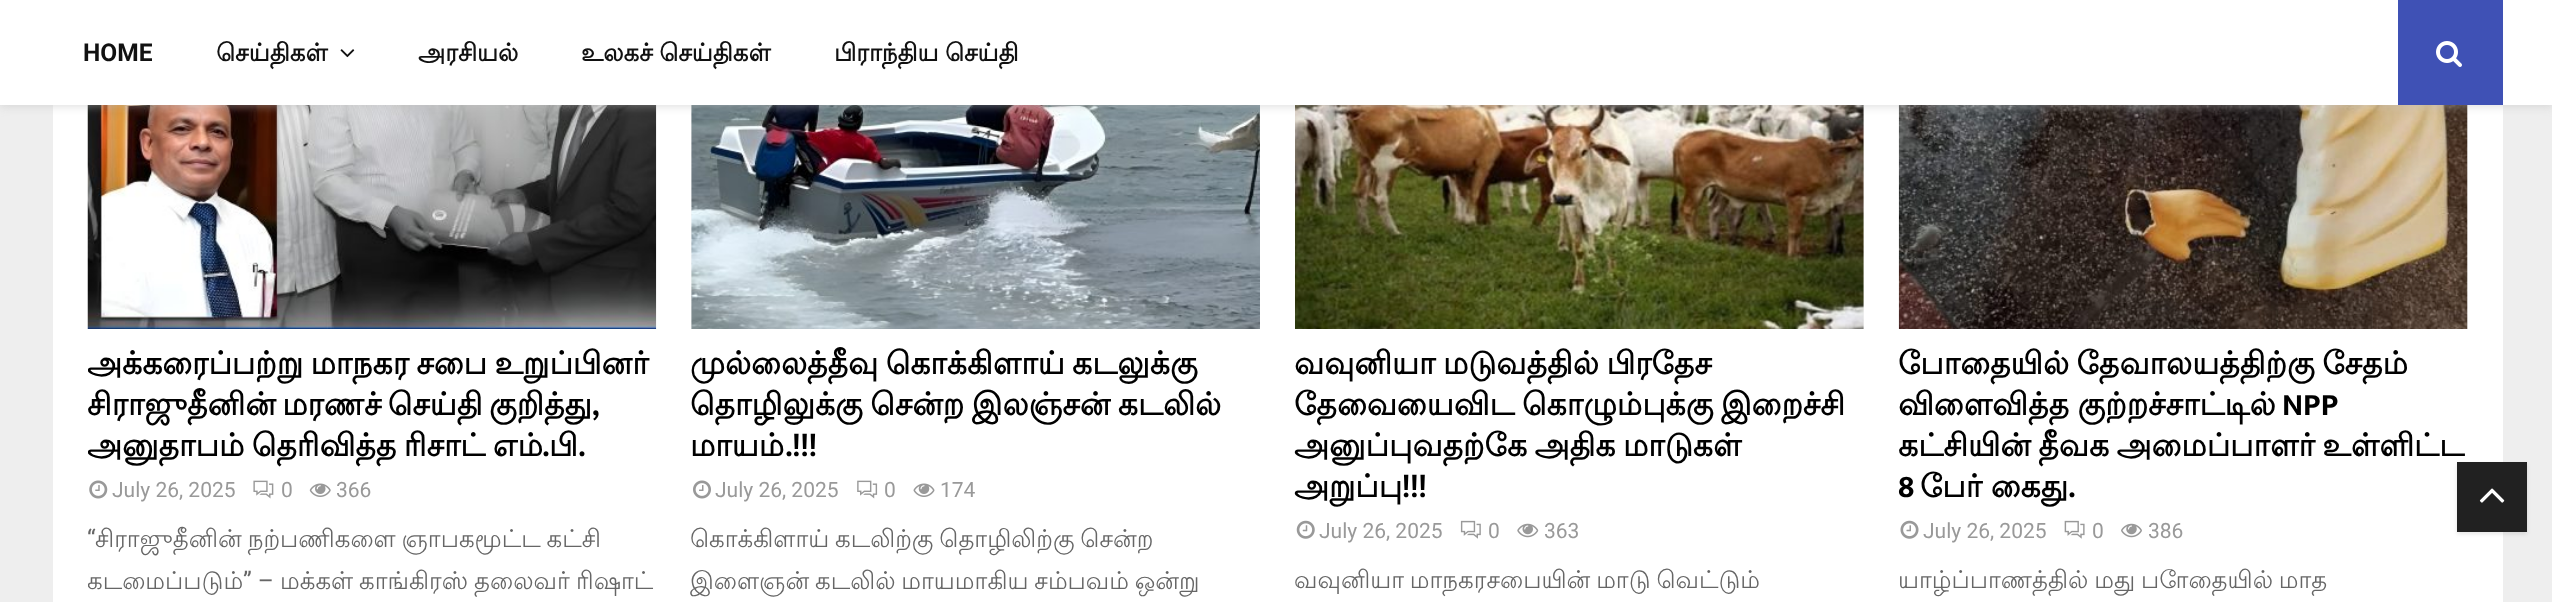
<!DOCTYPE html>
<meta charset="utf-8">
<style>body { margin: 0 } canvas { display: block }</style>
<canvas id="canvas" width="2552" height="602"></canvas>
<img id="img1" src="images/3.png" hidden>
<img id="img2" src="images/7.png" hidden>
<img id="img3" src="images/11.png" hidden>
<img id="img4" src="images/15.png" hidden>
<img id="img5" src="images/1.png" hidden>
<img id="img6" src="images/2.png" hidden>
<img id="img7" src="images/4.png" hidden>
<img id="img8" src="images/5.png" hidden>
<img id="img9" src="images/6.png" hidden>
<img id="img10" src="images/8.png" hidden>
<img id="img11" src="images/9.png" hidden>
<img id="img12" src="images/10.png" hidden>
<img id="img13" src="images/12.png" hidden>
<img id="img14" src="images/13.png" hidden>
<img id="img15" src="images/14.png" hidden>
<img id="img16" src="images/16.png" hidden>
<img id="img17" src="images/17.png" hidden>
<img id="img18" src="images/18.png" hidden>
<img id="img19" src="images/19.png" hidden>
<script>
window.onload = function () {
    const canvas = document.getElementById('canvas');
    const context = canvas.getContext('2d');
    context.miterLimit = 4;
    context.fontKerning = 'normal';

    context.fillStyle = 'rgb(238, 238, 238)';
    context.fillRect(0, 0, 2552, 602);
    context.fillStyle = 'rgb(255, 255, 255)';
    context.fillRect(53, 105, 2450, 497);
    context.drawImage(document.getElementById('img1'), 87, 105, 570, 224);
    context.fillStyle = 'rgb(245, 245, 245)';
    context.fillRect(691, 105, 1, 224);
    context.drawImage(document.getElementById('img2'), 691, 105, 569, 224);
    context.fillRect(1863, 105, 1, 224);
    context.drawImage(document.getElementById('img3'), 1295, 105, 569, 224);
    context.fillRect(2467, 105, 1, 224);
    context.drawImage(document.getElementById('img4'), 1898, 105, 570, 224);
    context.fillStyle = 'rgba(190, 190, 190, 0.46)';
    context.filter = 'blur(4.5px)';
    context.beginPath();
    context.rect(0, 2, 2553, 105);
    context.fill();
    context.filter = 'none';
    context.fillStyle = 'rgb(255, 255, 255)';
    context.fillRect(0, 0, 2552, 105);
    context.drawImage(document.getElementById('img5'), 340, 49, 15, 9);
    context.fillStyle = 'rgb(63, 81, 181)';
    context.fillRect(2398, 0, 105, 105);
    context.drawImage(document.getElementById('img6'), 2436, 41, 26, 26);
    context.drawImage(document.getElementById('img7'), 89, 480, 19, 19);
    context.drawImage(document.getElementById('img8'), 253, 480, 21, 19);
    context.drawImage(document.getElementById('img9'), 309, 483, 22, 14);
    context.drawImage(document.getElementById('img10'), 693, 480, 18, 19);
    context.drawImage(document.getElementById('img11'), 857, 480, 21, 19);
    context.drawImage(document.getElementById('img12'), 913, 483, 22, 14);
    context.drawImage(document.getElementById('img13'), 1296, 520, 19, 19);
    context.drawImage(document.getElementById('img14'), 1460, 520, 21, 19);
    context.drawImage(document.getElementById('img15'), 1517, 523, 22, 15);
    context.drawImage(document.getElementById('img16'), 1900, 520, 19, 19);
    context.drawImage(document.getElementById('img17'), 2064, 520, 21, 19);
    context.drawImage(document.getElementById('img18'), 2121, 523, 21, 15);
    context.fillStyle = 'rgba(0, 0, 0, 0.1)';
    context.filter = 'blur(2px)';
    context.beginPath();
    context.rect(2457, 464, 70, 70);
    context.fill();
    context.filter = 'none';
    context.font = 'bold 24.5px Roboto';
    context.fillStyle = 'rgb(17, 17, 17)';
    context.fillText('HOME', 83, 61);
    context.font = 'bold 24.5px Lohit Tamil';
    context.fillText('செய்திகள்', 216, 61);
    context.fillText('அரசியல்', 418, 61);
    context.wordSpacing = '-1px';
    context.fillText('உலகச் செய்திகள்', 581, 61);
    context.fillText('பிராந்திய செய்தி', 834, 61);
    context.save();
    context.beginPath();
    context.rect(88, 0, 2380, 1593);
    context.clip();
    context.wordSpacing = '-2px';
    context.font = 'bold 31.5px Lohit Tamil';
    context.fillStyle = 'rgb(0, 0, 0)';
    context.fillText('அக்கரைப்பற்று மாநகர சபை உறுப்பினர்', 87, 374);
    context.wordSpacing = '-3px';
    context.fillText('சிராஜுதீனின் மரணச் செய்தி குறித்து', 87, 415);
    context.restore();
    context.wordSpacing = '0px';
    context.font = 'bold 31.5px Mukta Vaani';
    context.fillStyle = 'rgb(0, 0, 0)';
    context.fillText(',', 592, 415);
    context.save();
    context.beginPath();
    context.rect(88, 0, 2380, 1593);
    context.clip();
    context.wordSpacing = '-2px';
    context.font = 'bold 31.5px Lohit Tamil';
    context.fillText('அனுதாபம் தெரிவித்த ரிசாட் எம்', 87, 456);
    context.restore();
    context.fillText('.', 542, 456);
    context.font = 'bold 31.5px Lohit Tamil';
    context.fillText('பி', 549, 456);
    context.font = 'bold 31.5px Mukta Vaani';
    context.fillText('.', 578, 456);
    context.font = '21px Roboto';
    context.fillStyle = 'rgb(153, 153, 153)';
    context.fillText('July 26, 2025', 112, 497);
    context.fillText('0', 281, 497);
    context.fillText('366', 336, 497);
    context.font = '24.5px Roboto';
    context.fillStyle = 'rgb(102, 102, 102)';
    context.fillText('“', 87, 547);
    context.wordSpacing = '-1.5px';
    context.font = '24.5px Lohit Tamil';
    context.fillText('சிராஜுதீனின் நற்பணிகளை ஞாபகமூட்ட கட்சி', 95, 547);
    context.save();
    context.beginPath();
    context.rect(88, 0, 2380, 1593);
    context.clip();
    context.wordSpacing = '0px';
    context.fillText('கடமைப்படும்', 87, 589);
    context.restore();
    context.wordSpacing = '0px';
    context.font = '24.5px Roboto';
    context.fillText('” –', 243, 589);
    context.font = '24.5px Lohit Tamil';
    context.fillText('மக்கள்', 280, 589);
    context.fillText('காங்கிரஸ்', 359, 589);
    context.fillText('தலைவர்', 474, 589);
    context.fillText('ரிஷாட்', 576, 589);
    context.wordSpacing = '-2px';
    context.font = 'bold 31.5px Lohit Tamil';
    context.fillStyle = 'rgb(0, 0, 0)';
    context.fillText('முல்லைத்தீவு கொக்கிளாய் கடலுக்கு', 690, 374);
    context.fillText('தொழிலுக்கு சென்ற இலஞ்சன் கடலில்', 690, 415);
    context.wordSpacing = '0px';
    context.fillText('மாயம்', 690, 456);
    context.font = 'bold 31.5px Mukta Vaani';
    context.fillText('.!!!', 785, 456);
    context.font = '21px Roboto';
    context.fillStyle = 'rgb(153, 153, 153)';
    context.fillText('July 26, 2025', 715, 497);
    context.fillText('0', 884, 497);
    context.fillText('174', 940, 497);
    context.wordSpacing = '-1.5px';
    context.font = '24.5px Lohit Tamil';
    context.fillStyle = 'rgb(102, 102, 102)';
    context.fillText('கொக்கிளாய் கடலிற்கு தொழிலிற்கு சென்ற', 690, 547);
    context.fillText('இளைஞன் கடலில் மாயமாகிய சம்பவம் ஒன்று', 690, 589);
    context.wordSpacing = '-2px';
    context.font = 'bold 31.5px Lohit Tamil';
    context.fillStyle = 'rgb(0, 0, 0)';
    context.fillText('வவுனியா மடுவத்தில் பிரதேச', 1294, 374);
    context.fillText('தேவையைவிட கொழும்புக்கு இறைச்சி', 1294, 415);
    context.fillText('அனுப்புவதற்கே அதிக மாடுகள்', 1294, 456);
    context.wordSpacing = '0px';
    context.fillText('அறுப்பு', 1294, 497);
    context.font = 'bold 31.5px Mukta Vaani';
    context.fillText('!!!', 1402, 497);
    context.font = '21px Roboto';
    context.fillStyle = 'rgb(153, 153, 153)';
    context.fillText('July 26, 2025', 1319, 538);
    context.fillText('0', 1488, 538);
    context.fillText('363', 1544, 538);
    context.wordSpacing = '-1.5px';
    context.font = '24.5px Lohit Tamil';
    context.fillStyle = 'rgb(102, 102, 102)';
    context.fillText('வவுனியா மாநகரசபையின் மாடு வெட்டும்', 1294, 588);
    context.wordSpacing = '-2px';
    context.font = 'bold 31.5px Lohit Tamil';
    context.fillStyle = 'rgb(0, 0, 0)';
    context.fillText('போதையில் தேவாலயத்திற்கு சேதம்', 1898, 374);
    context.wordSpacing = '-1px';
    context.fillText('விளைவித்த குற்றச்சாட்டில்', 1898, 415);
    context.wordSpacing = '0px';
    context.font = 'bold 31.5px Mukta Vaani';
    context.fillText('NPP', 2282, 415);
    context.wordSpacing = '-2px';
    context.font = 'bold 31.5px Lohit Tamil';
    context.fillText('கட்சியின் தீவக அமைப்பாளர் உள்ளிட்ட', 1898, 456);
    context.wordSpacing = '0px';
    context.font = 'bold 31.5px Mukta Vaani';
    context.fillText('8', 1898, 497);
    context.wordSpacing = '-1px';
    context.font = 'bold 31.5px Lohit Tamil';
    context.fillText('பேர் கைது', 1920, 497);
    context.wordSpacing = '0px';
    context.font = 'bold 31.5px Mukta Vaani';
    context.fillText('.', 2068, 497);
    context.font = '21px Roboto';
    context.fillStyle = 'rgb(153, 153, 153)';
    context.fillText('July 26, 2025', 1923, 538);
    context.fillText('0', 2092, 538);
    context.fillText('386', 2148, 538);
    context.wordSpacing = '-1.5px';
    context.font = '24.5px Lohit Tamil';
    context.fillStyle = 'rgb(102, 102, 102)';
    context.fillText('யாழ்ப்பாணத்தில் மது போதையில் மாத', 1898, 588);
    context.fillStyle = 'rgb(33, 33, 33)';
    context.fillRect(2457, 462, 70, 70);
    context.drawImage(document.getElementById('img19'), 2479, 488, 26, 15);
};
</script>
